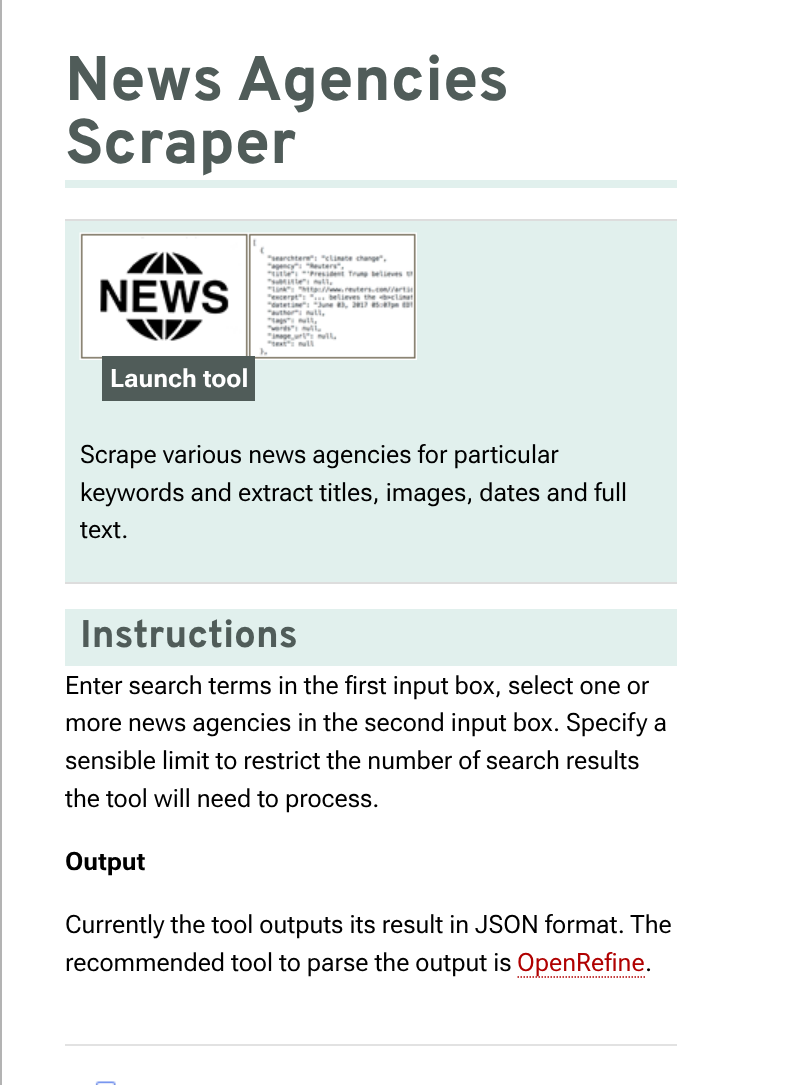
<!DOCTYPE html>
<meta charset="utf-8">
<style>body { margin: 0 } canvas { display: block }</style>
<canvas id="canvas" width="788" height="1085"></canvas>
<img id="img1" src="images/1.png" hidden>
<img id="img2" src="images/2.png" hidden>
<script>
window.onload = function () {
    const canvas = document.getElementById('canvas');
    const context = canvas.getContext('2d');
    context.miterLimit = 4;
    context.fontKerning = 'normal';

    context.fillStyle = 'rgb(255, 255, 255)';
    context.fillRect(0, 0, 788, 1085);
    context.fillStyle = 'rgb(179, 179, 179)';
    context.fillRect(0, 0, 2, 1085);
    context.fillStyle = 'rgb(225, 240, 237)';
    context.fillRect(65, 180, 612, 8);
    context.fillRect(65, 221, 612, 361);
    context.fillStyle = 'rgb(221, 221, 221)';
    context.fillRect(65, 219, 612, 2);
    context.fillRect(65, 582, 612, 2);
    context.drawImage(document.getElementById('img1'), 79, 232, 338, 128);
    context.fillStyle = 'rgb(80, 92, 89)';
    context.fillRect(102, 356, 153, 45);
    context.fillStyle = 'rgb(225, 240, 237)';
    context.fillRect(65, 609, 612, 57);
    context.beginPath();
    context.moveTo(517.5, 977);
    context.lineTo(645, 977);
    context.strokeStyle = 'rgb(176, 0, 0)';
    context.lineWidth = 1.5;
    context.setLineDash([1.5, 1.5]);
    context.stroke();
    context.fillStyle = 'rgb(226, 226, 226)';
    context.fillRect(65, 1044, 612, 2);
    context.drawImage(document.getElementById('img2'), 95, 1081, 21, 4);
    context.font = '800 63px Overpass';
    context.fillStyle = 'rgb(80, 92, 89)';
    context.fillText('News Agencies', 65, 100);
    context.fillText('Scraper', 65, 163);
    context.font = 'italic bold 25.2px Roboto Flex';
    context.fillStyle = 'rgb(255, 255, 255)';
    context.fillText('Launch tool', 110, 387);
    context.font = 'italic 25.2px Roboto Flex';
    context.fillStyle = 'rgb(0, 0, 0)';
    context.fillText('Scrape various news agencies for particular', 80, 463);
    context.fillText('keywords and extract titles, images, dates and full', 80, 501);
    context.fillText('text.', 80, 538);
    context.font = '800 38.5px Overpass';
    context.fillStyle = 'rgb(80, 92, 89)';
    context.fillText('Instructions', 80, 647);
    context.font = 'italic 25.2px Roboto Flex';
    context.fillStyle = 'rgb(0, 0, 0)';
    context.fillText('Enter search terms in the first input box, select one or', 65, 694);
    context.fillText('more news agencies in the second input box. Specify a', 65, 731);
    context.fillText('sensible limit to restrict the number of search results', 65, 769);
    context.fillText('the tool will need to process.', 65, 807);
    context.font = 'italic bold 25.2px Roboto Flex';
    context.fillText('Output', 65, 870);
    context.font = 'italic 25.2px Roboto Flex';
    context.fillText('Currently the tool outputs its result in JSON format. The', 65, 933);
    context.fillText('recommended tool to parse the output is', 65, 971);
    context.fillStyle = 'rgb(176, 0, 0)';
    context.fillText('OpenRefine', 517, 971);
    context.fillStyle = 'rgb(0, 0, 0)';
    context.fillText('.', 645, 971);
};
</script>
